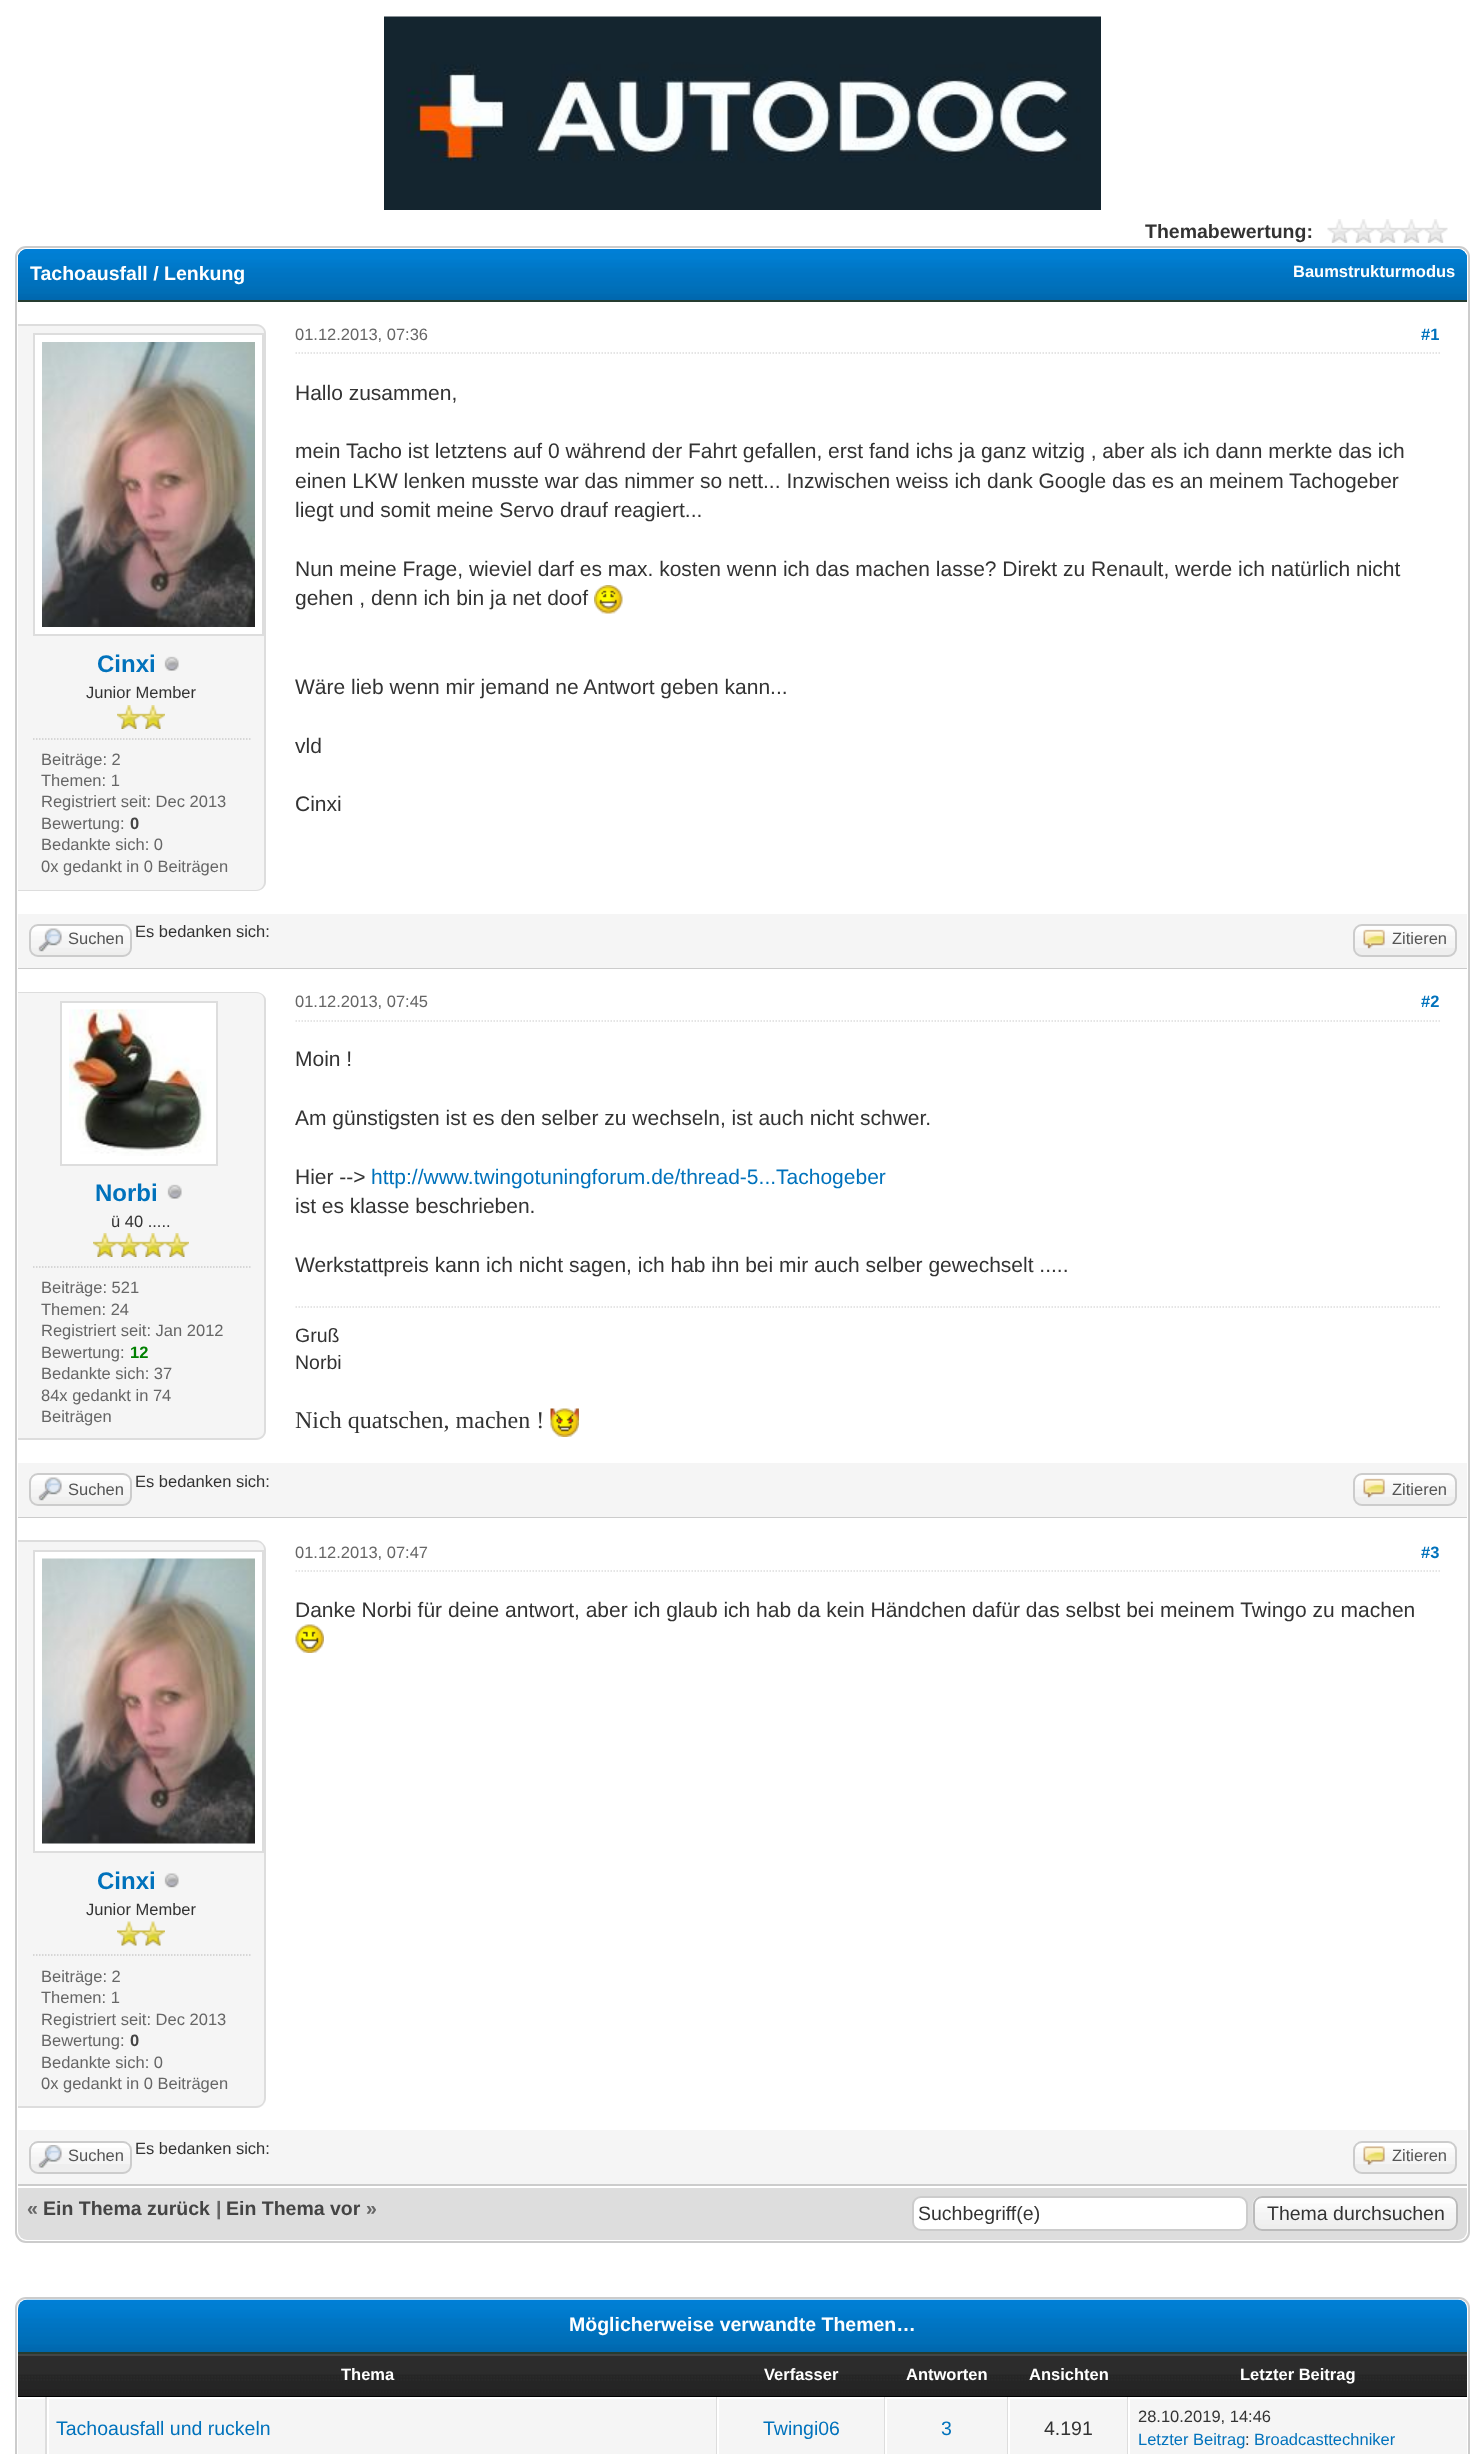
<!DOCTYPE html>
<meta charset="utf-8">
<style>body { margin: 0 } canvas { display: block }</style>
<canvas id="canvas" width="1484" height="2454"></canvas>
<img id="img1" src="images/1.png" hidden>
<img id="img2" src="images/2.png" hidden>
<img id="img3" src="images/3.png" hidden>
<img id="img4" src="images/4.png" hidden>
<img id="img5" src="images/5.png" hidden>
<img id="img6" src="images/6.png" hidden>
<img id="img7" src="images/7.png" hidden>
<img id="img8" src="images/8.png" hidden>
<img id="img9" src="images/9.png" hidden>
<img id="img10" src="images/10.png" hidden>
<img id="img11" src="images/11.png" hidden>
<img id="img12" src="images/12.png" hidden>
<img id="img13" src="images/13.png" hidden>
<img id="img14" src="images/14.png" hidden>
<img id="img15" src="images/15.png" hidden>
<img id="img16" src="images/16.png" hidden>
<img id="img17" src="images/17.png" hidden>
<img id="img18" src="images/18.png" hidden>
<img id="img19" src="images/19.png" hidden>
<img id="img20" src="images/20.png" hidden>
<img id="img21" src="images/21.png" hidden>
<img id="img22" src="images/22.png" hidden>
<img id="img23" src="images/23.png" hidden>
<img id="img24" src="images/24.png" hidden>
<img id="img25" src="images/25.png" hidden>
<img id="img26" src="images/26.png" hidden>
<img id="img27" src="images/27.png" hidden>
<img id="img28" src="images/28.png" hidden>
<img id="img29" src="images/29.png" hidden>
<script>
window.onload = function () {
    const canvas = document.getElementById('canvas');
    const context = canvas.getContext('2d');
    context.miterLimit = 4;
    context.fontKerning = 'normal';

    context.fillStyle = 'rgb(255, 255, 255)';
    context.fillRect(0, 0, 1484, 2454);
    context.drawImage(document.getElementById('img1'), 384, 16, 717, 194);
    context.drawImage(document.getElementById('img2'), 1327, 219, 121, 24);
    context.beginPath();
    context.roundRect(16, 247, 1453, 1995, 10);
    context.strokeStyle = 'rgb(204, 204, 204)';
    context.lineWidth = 2;
    context.stroke();
    context.fillStyle = 'rgb(0, 102, 162)';
    context.beginPath();
    context.roundRect(18, 249, 1449, 53, [9, 9, 0, 0]);
    context.fill();
    context.drawImage(document.getElementById('img3'), 18, 249, 1449, 51);
    context.fillStyle = 'rgb(38, 60, 48)';
    context.fillRect(18, 300, 1449, 2);
    context.fillStyle = 'rgb(245, 245, 245)';
    context.beginPath();
    context.roundRect(18, 324, 248, 567, [0, 9, 9, 0]);
    context.fill();
    context.fillStyle = 'rgb(221, 221, 221)';
    context.beginPath();
    context.moveTo(18, 324);
    context.lineTo(256, 324);
    context.bezierCurveTo(261, 324, 266, 328, 266, 333);
    context.lineTo(266, 882);
    context.bezierCurveTo(266, 887, 261, 891, 256, 891);
    context.lineTo(18, 891);
    context.closePath();
    context.moveTo(18, 326);
    context.lineTo(256, 326);
    context.bezierCurveTo(261, 326, 264, 329, 264, 333);
    context.lineTo(264, 882);
    context.bezierCurveTo(264, 886, 261, 890, 256, 890);
    context.lineTo(18, 890);
    context.closePath();
    context.fill('evenodd');
    context.fillStyle = 'rgb(255, 255, 255)';
    context.beginPath();
    context.rect(34, 334, 229, 301);
    context.fill();
    context.strokeStyle = 'rgb(221, 221, 221)';
    context.stroke();
    context.drawImage(document.getElementById('img4'), 42, 342, 213, 285);
    context.drawImage(document.getElementById('img5'), 164, 656, 15, 15);
    context.drawImage(document.getElementById('img6'), 117, 705, 24, 24);
    context.drawImage(document.getElementById('img6'), 141, 705, 24, 24);
    context.beginPath();
    context.moveTo(33, 739);
    context.lineTo(250.5, 739);
    context.strokeStyle = 'rgb(204, 204, 204)';
    context.lineWidth = 1.5;
    context.setLineDash([1.5, 1.5]);
    context.stroke();
    context.beginPath();
    context.moveTo(295.5, 353);
    context.lineTo(1440, 353);
    context.strokeStyle = 'rgb(221, 221, 221)';
    context.stroke();
    context.drawImage(document.getElementById('img7'), 594, 585, 29, 29);
    context.fillStyle = 'rgb(245, 245, 245)';
    context.fillRect(18, 914, 1449, 54);
    context.fillStyle = 'rgb(204, 204, 204)';
    context.fillRect(18, 968, 1449, 1);
    context.drawImage(document.getElementById('img8'), 29, 925, 103, 30);
    context.beginPath();
    context.roundRect(30, 925, 101, 31, 8);
    context.strokeStyle = 'rgb(204, 204, 204)';
    context.lineWidth = 2;
    context.setLineDash([]);
    context.stroke();
    context.drawImage(document.getElementById('img9'), 38, 928, 24, 24);
    context.fillStyle = 'rgb(238, 238, 238)';
    context.beginPath();
    context.roundRect(1353, 924, 104, 33, 9);
    context.fill();
    context.drawImage(document.getElementById('img10'), 1353, 925, 103, 23);
    context.beginPath();
    context.roundRect(1354, 925, 102, 31, 8);
    context.stroke();
    context.drawImage(document.getElementById('img11'), 1363, 929, 22, 20);
    context.fillStyle = 'rgb(245, 245, 245)';
    context.beginPath();
    context.roundRect(18, 992, 248, 448, [0, 9, 9, 0]);
    context.fill();
    context.fillStyle = 'rgb(221, 221, 221)';
    context.beginPath();
    context.moveTo(18, 992);
    context.lineTo(256, 992);
    context.bezierCurveTo(261, 992, 266, 996, 266, 1000);
    context.lineTo(266, 1431);
    context.bezierCurveTo(266, 1436, 261, 1440, 256, 1440);
    context.lineTo(18, 1440);
    context.closePath();
    context.moveTo(18, 993);
    context.lineTo(256, 993);
    context.bezierCurveTo(261, 993, 264, 996, 264, 1000);
    context.lineTo(264, 1431);
    context.bezierCurveTo(264, 1435, 261, 1438, 256, 1438);
    context.lineTo(18, 1438);
    context.closePath();
    context.fill('evenodd');
    context.fillStyle = 'rgb(255, 255, 255)';
    context.beginPath();
    context.rect(61, 1002, 156, 163);
    context.fill();
    context.strokeStyle = 'rgb(221, 221, 221)';
    context.stroke();
    context.drawImage(document.getElementById('img12'), 69, 1009, 138, 147);
    context.drawImage(document.getElementById('img5'), 167, 1184, 15, 15);
    context.drawImage(document.getElementById('img6'), 93, 1233, 24, 24);
    context.drawImage(document.getElementById('img6'), 117, 1233, 24, 24);
    context.drawImage(document.getElementById('img6'), 141, 1233, 24, 24);
    context.drawImage(document.getElementById('img6'), 165, 1233, 24, 24);
    context.beginPath();
    context.moveTo(33, 1267);
    context.lineTo(250.5, 1267);
    context.strokeStyle = 'rgb(204, 204, 204)';
    context.lineWidth = 1.5;
    context.setLineDash([1.5, 1.5]);
    context.stroke();
    context.beginPath();
    context.moveTo(295.5, 1021);
    context.lineTo(1440, 1021);
    context.strokeStyle = 'rgb(221, 221, 221)';
    context.stroke();
    context.beginPath();
    context.moveTo(295.5, 1307);
    context.lineTo(1440, 1307);
    context.stroke();
    context.drawImage(document.getElementById('img13'), 550, 1408, 29, 29);
    context.fillStyle = 'rgb(245, 245, 245)';
    context.fillRect(18, 1463, 1449, 54);
    context.fillStyle = 'rgb(204, 204, 204)';
    context.fillRect(18, 1517, 1449, 1);
    context.drawImage(document.getElementById('img14'), 29, 1474, 103, 30);
    context.beginPath();
    context.roundRect(30, 1474, 101, 31, 8);
    context.strokeStyle = 'rgb(204, 204, 204)';
    context.lineWidth = 2;
    context.setLineDash([]);
    context.stroke();
    context.drawImage(document.getElementById('img9'), 38, 1477, 24, 24);
    context.fillStyle = 'rgb(238, 238, 238)';
    context.beginPath();
    context.roundRect(1353, 1473, 104, 33, 9);
    context.fill();
    context.drawImage(document.getElementById('img10'), 1353, 1474, 103, 23);
    context.beginPath();
    context.roundRect(1354, 1474, 102, 31, 8);
    context.stroke();
    context.drawImage(document.getElementById('img11'), 1363, 1478, 22, 20);
    context.beginPath();
    context.moveTo(295.5, 1571);
    context.lineTo(1440, 1571);
    context.strokeStyle = 'rgb(221, 221, 221)';
    context.lineWidth = 1.5;
    context.setLineDash([1.5, 1.5]);
    context.stroke();
    context.drawImage(document.getElementById('img15'), 295, 1624, 29, 29);
    context.fillStyle = 'rgb(245, 245, 245)';
    context.beginPath();
    context.roundRect(18, 1541, 248, 567, [0, 9, 9, 0]);
    context.fill();
    context.fillStyle = 'rgb(221, 221, 221)';
    context.beginPath();
    context.moveTo(18, 1540);
    context.lineTo(256, 1540);
    context.bezierCurveTo(261, 1540, 266, 1545, 266, 1550);
    context.lineTo(266, 2098);
    context.bezierCurveTo(266, 2103, 261, 2108, 256, 2108);
    context.lineTo(18, 2108);
    context.closePath();
    context.moveTo(18, 1542);
    context.lineTo(256, 1542);
    context.bezierCurveTo(261, 1542, 264, 1545, 264, 1550);
    context.lineTo(264, 2098);
    context.bezierCurveTo(264, 2103, 261, 2106, 256, 2106);
    context.lineTo(18, 2106);
    context.closePath();
    context.fill('evenodd');
    context.fillStyle = 'rgb(255, 255, 255)';
    context.beginPath();
    context.rect(34, 1551, 229, 301);
    context.fill();
    context.lineWidth = 2;
    context.setLineDash([]);
    context.stroke();
    context.drawImage(document.getElementById('img16'), 42, 1558, 213, 286);
    context.drawImage(document.getElementById('img17'), 164, 1873, 15, 15);
    context.drawImage(document.getElementById('img18'), 117, 1921, 24, 25);
    context.drawImage(document.getElementById('img18'), 141, 1921, 24, 25);
    context.beginPath();
    context.moveTo(33, 1955);
    context.lineTo(250.5, 1955);
    context.strokeStyle = 'rgb(204, 204, 204)';
    context.lineWidth = 1.5;
    context.setLineDash([1.5, 1.5]);
    context.stroke();
    context.fillStyle = 'rgb(245, 245, 245)';
    context.fillRect(18, 2130, 1449, 54);
    context.fillStyle = 'rgb(204, 204, 204)';
    context.fillRect(18, 2184, 1449, 2);
    context.fillStyle = 'rgb(238, 238, 238)';
    context.beginPath();
    context.roundRect(29, 2141, 103, 33, 9);
    context.fill();
    context.drawImage(document.getElementById('img19'), 29, 2142, 103, 22);
    context.beginPath();
    context.roundRect(30, 2142, 101, 31, 8);
    context.lineWidth = 2;
    context.setLineDash([]);
    context.stroke();
    context.drawImage(document.getElementById('img20'), 38, 2145, 24, 23);
    context.beginPath();
    context.roundRect(1353, 2141, 104, 33, 9);
    context.fill();
    context.drawImage(document.getElementById('img21'), 1353, 2142, 103, 22);
    context.beginPath();
    context.roundRect(1354, 2142, 102, 31, 8);
    context.stroke();
    context.drawImage(document.getElementById('img22'), 1363, 2146, 22, 19);
    context.fillStyle = 'rgb(221, 221, 221)';
    context.beginPath();
    context.roundRect(18, 2186, 1449, 54, [0, 0, 9, 9]);
    context.fill();
    context.fillStyle = 'rgb(255, 255, 255)';
    context.fillRect(18, 2186, 1449, 2);
    context.beginPath();
    context.roundRect(913, 2197, 334, 33, 8);
    context.fill();
    context.stroke();
    context.fillStyle = 'rgb(238, 238, 238)';
    context.beginPath();
    context.roundRect(1253, 2196, 205, 35, 9);
    context.fill();
    context.drawImage(document.getElementById('img23'), 1252, 2197, 206, 29);
    context.beginPath();
    context.roundRect(1254, 2197, 203, 33, 8);
    context.strokeStyle = 'rgb(187, 187, 187)';
    context.stroke();
    context.beginPath();
    context.roundRect(16, 2298, 1453, 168, 10);
    context.strokeStyle = 'rgb(204, 204, 204)';
    context.stroke();
    context.drawImage(document.getElementById('img24'), 18, 2299, 1449, 53);
    context.fillStyle = 'rgb(38, 60, 48)';
    context.fillRect(18, 2352, 1449, 2);
    context.drawImage(document.getElementById('img25'), 18, 2356, 699, 40);
    context.fillStyle = 'rgb(68, 68, 68)';
    context.fillRect(18, 2354, 1449, 2);
    context.fillStyle = 'rgb(0, 0, 0)';
    context.fillRect(18, 2396, 1449, 1);
    context.drawImage(document.getElementById('img26'), 717, 2356, 168, 40);
    context.drawImage(document.getElementById('img27'), 885, 2356, 123, 40);
    context.drawImage(document.getElementById('img28'), 1008, 2356, 120, 40);
    context.drawImage(document.getElementById('img29'), 1128, 2356, 339, 40);
    context.fillStyle = 'rgb(245, 245, 245)';
    context.fillRect(18, 2399, 27, 55);
    context.fillStyle = 'rgb(221, 221, 221)';
    context.fillRect(45, 2397, 2, 57);
    context.fillStyle = 'rgb(245, 245, 245)';
    context.fillRect(49, 2399, 667, 55);
    context.fillStyle = 'rgb(221, 221, 221)';
    context.fillRect(716, 2397, 1, 57);
    context.fillStyle = 'rgb(245, 245, 245)';
    context.fillRect(719, 2399, 165, 55);
    context.fillStyle = 'rgb(221, 221, 221)';
    context.fillRect(884, 2397, 1, 57);
    context.fillStyle = 'rgb(245, 245, 245)';
    context.fillRect(887, 2399, 120, 55);
    context.fillStyle = 'rgb(221, 221, 221)';
    context.fillRect(1007, 2397, 1, 57);
    context.fillStyle = 'rgb(245, 245, 245)';
    context.fillRect(1010, 2399, 117, 55);
    context.fillStyle = 'rgb(221, 221, 221)';
    context.fillRect(1127, 2397, 1, 57);
    context.fillStyle = 'rgb(245, 245, 245)';
    context.fillRect(1130, 2399, 337, 55);
    context.font = 'bold 19.5px Liberation Sans';
    context.fillStyle = 'rgb(51, 51, 51)';
    context.fillText('Themabewertung:', 1145, 238);
    context.fillStyle = 'rgb(255, 255, 255)';
    context.fillText('Tachoausfall / Lenkung', 30, 280);
    context.font = 'bold 16.5px Liberation Sans';
    context.fillText('Baumstrukturmodus', 1293, 277);
    context.font = 'bold 24px Liberation Sans';
    context.fillStyle = 'rgb(0, 114, 188)';
    context.fillText('Cinxi', 97, 672);
    context.font = '16.5px Liberation Sans';
    context.fillStyle = 'rgb(51, 51, 51)';
    context.fillText('Junior Member', 86, 698);
    context.fillStyle = 'rgb(102, 102, 102)';
    context.fillText('Beiträge: 2', 41, 765);
    context.fillText('Themen: 1', 41, 786);
    context.fillText('Registriert seit: Dec 2013', 41, 807);
    context.fillText('Bewertung:', 41, 829);
    context.font = 'bold 16.5px Liberation Sans';
    context.fillStyle = 'rgb(68, 68, 68)';
    context.fillText('0', 130, 829);
    context.font = '16.5px Liberation Sans';
    context.fillStyle = 'rgb(102, 102, 102)';
    context.fillText('Bedankte sich: 0', 41, 850);
    context.fillText('0x gedankt in 0 Beiträgen', 41, 872);
    context.fillText('01.12.2013, 07:36', 295, 340);
    context.font = 'bold 16.5px Liberation Sans';
    context.fillStyle = 'rgb(0, 114, 188)';
    context.fillText('#1', 1421, 340);
    context.font = '21px Liberation Sans';
    context.fillStyle = 'rgb(51, 51, 51)';
    context.fillText('Hallo zusammen,', 295, 400);
    context.fillText('mein Tacho ist letztens auf 0 während der Fahrt gefallen, erst fand ichs ja ganz witzig , aber als ich dann merkte das ich', 295, 458);
    context.fillText('einen LKW lenken musste war das nimmer so nett... Inzwischen weiss ich dank Google das es an meinem Tachogeber', 295, 488);
    context.fillText('liegt und somit meine Servo drauf reagiert...', 295, 517);
    context.fillText('Nun meine Frage, wieviel darf es max. kosten wenn ich das machen lasse? Direkt zu Renault, werde ich natürlich nicht', 295, 576);
    context.fillText('gehen , denn ich bin ja net doof', 295, 605);
    context.fillText('Wäre lieb wenn mir jemand ne Antwort geben kann...', 295, 694);
    context.fillText('vld', 295, 753);
    context.fillText('Cinxi', 295, 811);
    context.font = '16.5px Liberation Sans';
    context.fillStyle = 'rgb(85, 85, 85)';
    context.fillText('Suchen', 68, 944);
    context.fillStyle = 'rgb(51, 51, 51)';
    context.fillText('Es bedanken sich:', 135, 937);
    context.fillStyle = 'rgb(85, 85, 85)';
    context.fillText('Zitieren', 1392, 944);
    context.font = 'bold 24px Liberation Sans';
    context.fillStyle = 'rgb(0, 114, 188)';
    context.fillText('Norbi', 95, 1201);
    context.font = '16.5px Liberation Sans';
    context.fillStyle = 'rgb(51, 51, 51)';
    context.fillText('ü 40 .....', 111, 1227);
    context.fillStyle = 'rgb(102, 102, 102)';
    context.fillText('Beiträge: 521', 41, 1293);
    context.fillText('Themen: 24', 41, 1315);
    context.fillText('Registriert seit: Jan 2012', 41, 1336);
    context.fillText('Bewertung:', 41, 1358);
    context.font = 'bold 16.5px Liberation Sans';
    context.fillStyle = 'rgb(0, 128, 0)';
    context.fillText('12', 130, 1358);
    context.font = '16.5px Liberation Sans';
    context.fillStyle = 'rgb(102, 102, 102)';
    context.fillText('Bedankte sich: 37', 41, 1379);
    context.fillText('84x gedankt in 74', 41, 1401);
    context.fillText('Beiträgen', 41, 1422);
    context.fillText('01.12.2013, 07:45', 295, 1007);
    context.font = 'bold 16.5px Liberation Sans';
    context.fillStyle = 'rgb(0, 114, 188)';
    context.fillText('#2', 1421, 1007);
    context.font = '21px Liberation Sans';
    context.fillStyle = 'rgb(51, 51, 51)';
    context.fillText('Moin !', 295, 1066);
    context.fillText('Am günstigsten ist es den selber zu wechseln, ist auch nicht schwer.', 295, 1125);
    context.fillText('Hier -->', 295, 1184);
    context.fillStyle = 'rgb(0, 114, 188)';
    context.fillText('http://www.twingotuningforum.de/thread-5...Tachogeber', 371, 1184);
    context.fillStyle = 'rgb(51, 51, 51)';
    context.fillText('ist es klasse beschrieben.', 295, 1213);
    context.fillText('Werkstattpreis kann ich nicht sagen, ich hab ihn bei mir auch selber gewechselt .....', 295, 1272);
    context.font = '19.5px Liberation Sans';
    context.fillText('Gruß', 295, 1342);
    context.fillText('Norbi', 295, 1369);
    context.font = '24px Liberation Serif';
    context.fillText('Nich quatschen, machen !', 295, 1428);
    context.font = '16.5px Liberation Sans';
    context.fillText('Es bedanken sich:', 135, 1487);
    context.fillStyle = 'rgb(85, 85, 85)';
    context.fillText('Suchen', 68, 1495);
    context.fillText('Zitieren', 1392, 1495);
    context.fillStyle = 'rgb(102, 102, 102)';
    context.fillText('01.12.2013, 07:47', 295, 1558);
    context.font = 'bold 16.5px Liberation Sans';
    context.fillStyle = 'rgb(0, 114, 188)';
    context.fillText('#3', 1421, 1558);
    context.font = '21px Liberation Sans';
    context.fillStyle = 'rgb(51, 51, 51)';
    context.fillText('Danke Norbi für deine antwort, aber ich glaub ich hab da kein Händchen dafür das selbst bei meinem Twingo zu machen', 295, 1617);
    context.font = 'bold 24px Liberation Sans';
    context.fillStyle = 'rgb(0, 114, 188)';
    context.fillText('Cinxi', 97, 1889);
    context.font = '16.5px Liberation Sans';
    context.fillStyle = 'rgb(51, 51, 51)';
    context.fillText('Junior Member', 86, 1915);
    context.fillStyle = 'rgb(102, 102, 102)';
    context.fillText('Beiträge: 2', 41, 1982);
    context.fillText('Themen: 1', 41, 2003);
    context.fillText('Registriert seit: Dec 2013', 41, 2025);
    context.fillText('Bewertung:', 41, 2046);
    context.font = 'bold 16.5px Liberation Sans';
    context.fillStyle = 'rgb(68, 68, 68)';
    context.fillText('0', 130, 2046);
    context.font = '16.5px Liberation Sans';
    context.fillStyle = 'rgb(102, 102, 102)';
    context.fillText('Bedankte sich: 0', 41, 2068);
    context.fillText('0x gedankt in 0 Beiträgen', 41, 2089);
    context.fillStyle = 'rgb(85, 85, 85)';
    context.fillText('Suchen', 68, 2161);
    context.fillStyle = 'rgb(51, 51, 51)';
    context.fillText('Es bedanken sich:', 135, 2154);
    context.fillStyle = 'rgb(85, 85, 85)';
    context.fillText('Zitieren', 1392, 2161);
    context.font = 'bold 19.5px Liberation Sans';
    context.fillStyle = 'rgb(102, 102, 102)';
    context.fillText('«', 27, 2215);
    context.fillStyle = 'rgb(68, 68, 68)';
    context.fillText('Ein Thema zurück', 43, 2215);
    context.fillStyle = 'rgb(102, 102, 102)';
    context.fillText('|', 216, 2215);
    context.fillStyle = 'rgb(68, 68, 68)';
    context.fillText('Ein Thema vor', 226, 2215);
    context.fillStyle = 'rgb(102, 102, 102)';
    context.fillText('»', 366, 2215);
    context.font = '19.5px Liberation Sans';
    context.fillStyle = 'rgb(51, 51, 51)';
    context.fillText('Suchbegriff(e)', 918, 2220);
    context.fillText('Thema durchsuchen', 1267, 2220);
    context.font = 'bold 19.5px Liberation Sans';
    context.fillStyle = 'rgb(255, 255, 255)';
    context.fillText('Möglicherweise verwandte Themen…', 569, 2331);
    context.font = 'bold 16.5px Liberation Sans';
    context.fillText('Thema', 341, 2380);
    context.fillText('Verfasser', 764, 2380);
    context.fillText('Antworten', 906, 2380);
    context.fillText('Ansichten', 1029, 2380);
    context.fillText('Letzter Beitrag', 1240, 2380);
    context.font = '19.5px Liberation Sans';
    context.fillStyle = 'rgb(0, 114, 188)';
    context.fillText('Tachoausfall und ruckeln', 56, 2435);
    context.fillText('Twingi06', 763, 2435);
    context.fillText('3', 941, 2435);
    context.fillStyle = 'rgb(51, 51, 51)';
    context.fillText('4.191', 1044, 2435);
    context.font = '16.5px Liberation Sans';
    context.fillText('28.10.2019, 14:46', 1138, 2422);
    context.fillStyle = 'rgb(0, 114, 188)';
    context.fillText('Letzter Beitrag', 1138, 2445);
    context.fillStyle = 'rgb(51, 51, 51)';
    context.fillText(':', 1245, 2445);
    context.fillStyle = 'rgb(0, 114, 188)';
    context.fillText('Broadcasttechniker', 1254, 2445);
};
</script>
